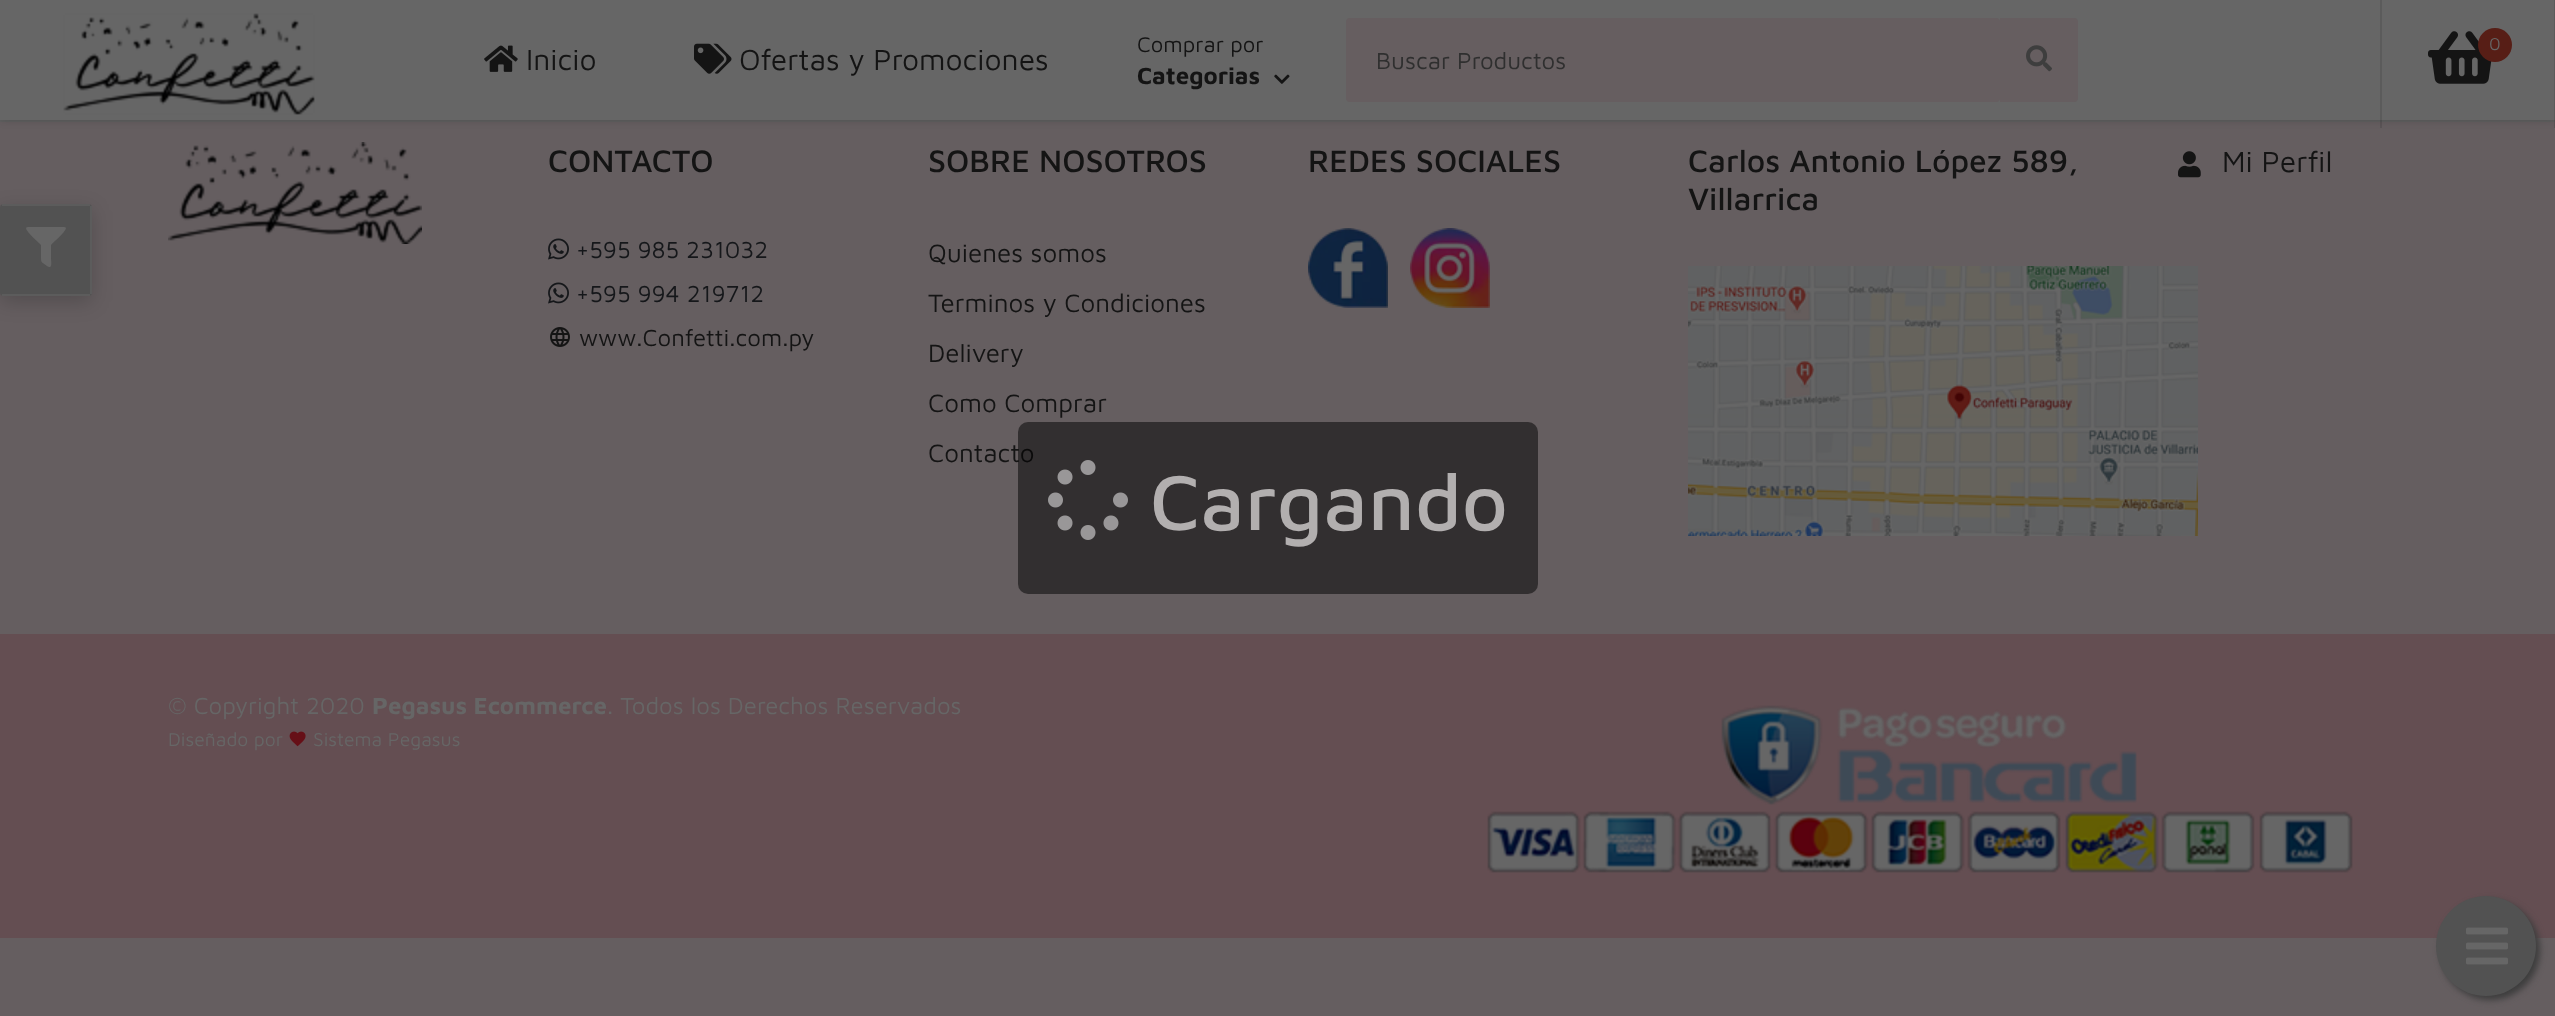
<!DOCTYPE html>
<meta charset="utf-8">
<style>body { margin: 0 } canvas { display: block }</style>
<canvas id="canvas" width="2555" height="1016"></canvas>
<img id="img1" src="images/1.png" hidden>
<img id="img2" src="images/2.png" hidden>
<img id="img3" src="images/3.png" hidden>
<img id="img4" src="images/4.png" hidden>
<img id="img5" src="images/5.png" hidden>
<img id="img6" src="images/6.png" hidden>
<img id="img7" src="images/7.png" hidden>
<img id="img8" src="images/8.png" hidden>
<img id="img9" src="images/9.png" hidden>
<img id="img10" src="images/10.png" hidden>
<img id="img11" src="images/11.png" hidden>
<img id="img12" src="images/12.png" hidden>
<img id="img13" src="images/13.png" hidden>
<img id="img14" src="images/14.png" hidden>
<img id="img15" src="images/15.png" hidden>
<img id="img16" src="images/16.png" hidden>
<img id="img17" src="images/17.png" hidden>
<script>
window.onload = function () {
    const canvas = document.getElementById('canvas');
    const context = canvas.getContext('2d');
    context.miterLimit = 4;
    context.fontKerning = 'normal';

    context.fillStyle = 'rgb(101, 94, 96)';
    context.fillRect(0, 0, 2555, 1016);
    context.fillStyle = 'rgb(95, 95, 95)';
    context.fillRect(0, 120, 2555, 2);
    context.fillStyle = 'rgba(0, 0, 0, 0.16)';
    context.filter = 'blur(4px)';
    context.beginPath();
    context.rect(0, 0, 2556, 120);
    context.fill();
    context.filter = 'none';
    context.fillStyle = 'rgb(102, 102, 102)';
    context.fillRect(0, 0, 2555, 120);
    context.drawImage(document.getElementById('img1'), 63, 13, 252, 102);
    context.drawImage(document.getElementById('img2'), 1274, 74, 16, 10);
    context.fillStyle = 'rgba(0, 0, 0, 0.1)';
    context.fillRect(2554, 0, 1, 128);
    context.fillRect(2380, 0, 2, 128);
    context.drawImage(document.getElementById('img3'), 2428, 31, 64, 53);
    context.fillStyle = 'rgb(87, 30, 22)';
    context.beginPath();
    context.arc(2495, 45, 17, 0, 2 * Math.PI);
    context.fill();
    context.drawImage(document.getElementById('img4'), 484, 45, 34, 27);
    context.drawImage(document.getElementById('img5'), 694, 43, 38, 31);
    context.fillStyle = 'rgb(102, 94, 96)';
    context.beginPath();
    context.roundRect(1346, 18, 654, 84, 4);
    context.fill();
    context.beginPath();
    context.roundRect(2000, 18, 78, 84, [0, 4, 4, 0]);
    context.fill();
    context.drawImage(document.getElementById('img6'), 2026, 45, 26, 27);
    context.drawImage(document.getElementById('img7'), 2178, 151, 23, 27);
    context.fillStyle = 'rgba(0, 0, 0, 0.18)';
    context.filter = 'blur(10px)';
    context.beginPath();
    context.roundRect(0, 210, 92, 92, 4);
    context.fill();
    context.filter = 'none';
    context.fillStyle = 'rgb(82, 82, 82)';
    context.beginPath();
    context.roundRect(0, 204, 92, 92, 4);
    context.fill();
    context.fillStyle = 'rgb(92, 92, 92)';
    context.fillRect(2, 204, 88, 2);
    context.fillRect(90, 206, 2, 88);
    context.fillRect(2, 294, 88, 2);
    context.fillStyle = 'rgb(102, 102, 102)';
    context.beginPath();
    context.moveTo(64, 227);
    context.bezierCurveTo(71, 227, 57, 239, 51, 245);
    context.lineTo(51, 258);
    context.bezierCurveTo(51, 262, 53, 270, 47, 266);
    context.bezierCurveTo(42, 262, 41, 263, 41, 258);
    context.lineTo(41, 245);
    context.bezierCurveTo(35, 239, 21, 227, 28, 227);
    context.closePath();
    context.fill();
    context.drawImage(document.getElementById('img8'), 168, 142, 254, 102);
    context.drawImage(document.getElementById('img9'), 548, 238, 21, 22);
    context.drawImage(document.getElementById('img9'), 548, 282, 21, 22);
    context.drawImage(document.getElementById('img10'), 550, 327, 20, 20);
    context.drawImage(document.getElementById('img11'), 1308, 228, 80, 80);
    context.drawImage(document.getElementById('img12'), 1410, 228, 80, 80);
    context.drawImage(document.getElementById('img13'), 1688, 266, 510, 270);
    context.fillStyle = 'rgb(100, 78, 82)';
    context.fillRect(0, 634, 2555, 304);
    context.drawImage(document.getElementById('img14'), 289, 731, 17, 16);
    context.drawImage(document.getElementById('img15'), 1487, 705, 866, 168);
    context.fillStyle = 'rgb(61, 61, 61)';
    context.filter = 'blur(3px)';
    context.beginPath();
    context.roundRect(2440, 900, 100, 100, 50);
    context.fill();
    context.filter = 'none';
    context.fillStyle = 'rgb(82, 82, 82)';
    context.beginPath();
    context.arc(2486, 946, 50, 0, 2 * Math.PI);
    context.fill();
    context.drawImage(document.getElementById('img16'), 2466, 927, 42, 38);
    context.font = '22px Maven Pro';
    context.fillStyle = 'rgb(20, 20, 20)';
    context.fillText('Comprar por', 1137, 52);
    context.font = 'bold 24px Maven Pro';
    context.fillText('Categorias', 1137, 84);
    context.font = '18px Maven Pro';
    context.fillStyle = 'rgb(102, 102, 102)';
    context.fillText('0', 2489, 50);
    context.font = '30px Maven Pro';
    context.fillStyle = 'rgb(20, 20, 20)';
    context.fillText('Inicio', 526, 70);
    context.fillText('Ofertas y Promociones', 739, 70);
    context.font = '24px Maven Pro';
    context.fillStyle = 'rgb(47, 47, 47)';
    context.fillText('Buscar Productos', 1376, 69);
    context.font = '30px Maven Pro';
    context.fillStyle = 'rgb(20, 20, 20)';
    context.fillText('Mi Perfil', 2222, 172);
    context.font = '500 32px Maven Pro';
    context.fillText('CONTACTO', 548, 172);
    context.font = '24px Maven Pro';
    context.fillStyle = 'rgb(21, 23, 26)';
    context.fillText('+595 985 231032', 576, 258);
    context.fillText('+595 994 219712', 576, 302);
    context.fillStyle = 'rgb(20, 20, 20)';
    context.fillText('www.Confetti.com.py', 579, 346);
    context.font = '500 32px Maven Pro';
    context.fillText('SOBRE NOSOTROS', 928, 172);
    context.font = '26px Maven Pro';
    context.fillText('Quienes somos', 928, 262);
    context.fillText('Terminos y Condiciones', 928, 312);
    context.fillText('Delivery', 928, 362);
    context.fillText('Como Comprar', 928, 412);
    context.fillText('Contacto', 928, 462);
    context.font = '500 32px Maven Pro';
    context.fillText('REDES SOCIALES', 1308, 172);
    context.fillText('Carlos Antonio López 589,', 1688, 172);
    context.fillText('Villarrica', 1688, 210);
    context.font = '24px Maven Pro';
    context.fillStyle = 'rgb(102, 102, 102)';
    context.fillText('© Copyright 2020', 168, 714);
    context.font = 'bold 24px Maven Pro';
    context.fillText('Pegasus Ecommerce', 372, 714);
    context.font = '24px Maven Pro';
    context.fillText('. Todos los Derechos Reservados', 607, 714);
    context.font = '19.25px Maven Pro';
    context.fillText('Diseñado por', 168, 746);
    context.fillText('Sistema Pegasus', 313, 746);
    context.fillStyle = 'rgba(0, 0, 0, 0.5)';
    context.beginPath();
    context.roundRect(1018, 422, 520, 172, 10);
    context.fill();
    context.drawImage(document.getElementById('img17'), 1048, 460, 80, 80);
    context.font = '500 80px Maven Pro';
    context.fillStyle = 'rgb(178, 175, 175)';
    context.fillText('Cargando', 1150, 530);
};
</script>
